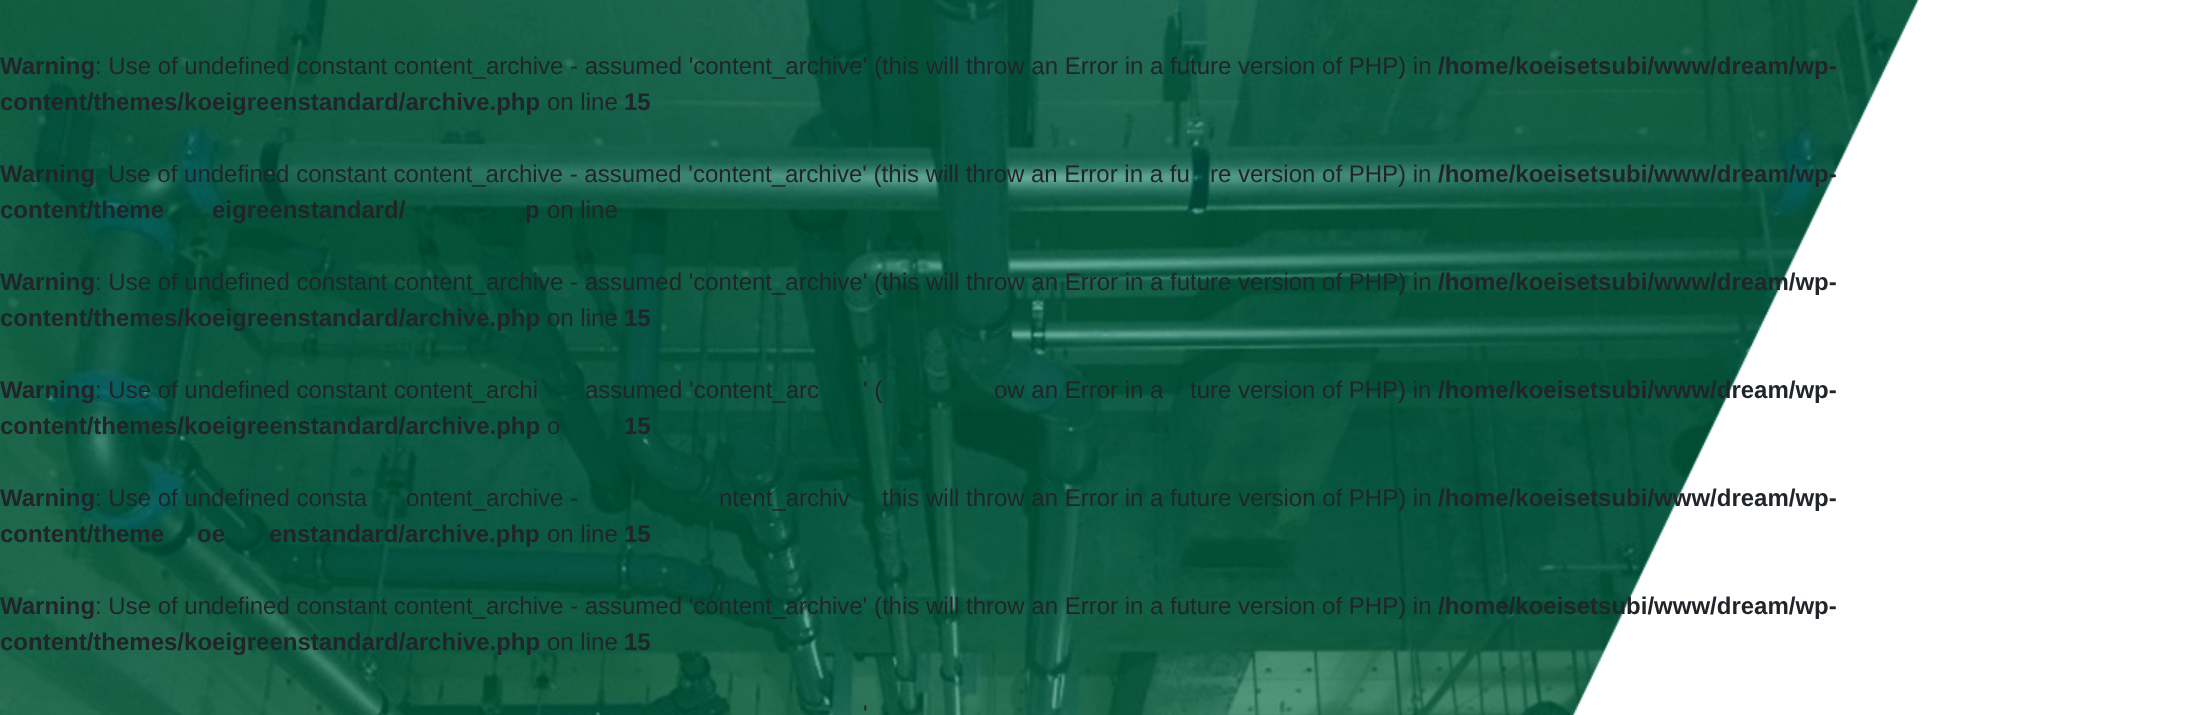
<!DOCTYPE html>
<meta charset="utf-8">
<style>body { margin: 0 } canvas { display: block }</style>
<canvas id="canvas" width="2201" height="715"></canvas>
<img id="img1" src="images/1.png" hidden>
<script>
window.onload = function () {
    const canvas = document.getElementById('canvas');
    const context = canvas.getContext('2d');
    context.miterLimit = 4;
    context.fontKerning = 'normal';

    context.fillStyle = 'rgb(255, 255, 255)';
    context.fillRect(0, 0, 2201, 715);
    context.drawImage(document.getElementById('img1'), 0, 0, 1919, 715);
    context.font = 'bold 24px Liberation Sans';
    context.fillStyle = 'rgb(33, 37, 41)';
    context.fillText('Warning', 0, 74);
    context.font = '24px Liberation Sans';
    context.fillText(': Use of undefined constant content_archive - assumed \'content_archive\' (this will throw an Error in a future version of PHP) in', 95, 74);
    context.font = 'bold 24px Liberation Sans';
    context.fillText('/home/koeisetsubi/www/dream/wp-', 1438, 74);
    context.fillText('content/themes/koeigreenstandard/archive.php', 0, 110);
    context.font = '24px Liberation Sans';
    context.fillText('on line', 547, 110);
    context.font = 'bold 24px Liberation Sans';
    context.fillText('15', 624, 110);
    context.fillText('Warning', 0, 182);
    context.font = '24px Liberation Sans';
    context.fillText('Use of undefined constant content_archive - assumed \'content_archive\' (this will throw an Error in a fu', 108, 182);
    context.fillText('re version of PHP) in', 1210, 182);
    context.font = 'bold 24px Liberation Sans';
    context.fillText('/home/koeisetsubi/www/dream/wp-', 1438, 182);
    context.fillText('content/theme', 0, 218);
    context.fillText('eigreenstandard/', 212, 218);
    context.fillText('p', 525, 218);
    context.font = '24px Liberation Sans';
    context.fillText('on line', 547, 218);
    context.font = 'bold 24px Liberation Sans';
    context.fillText('Warning', 0, 290);
    context.font = '24px Liberation Sans';
    context.fillText(': Use of undefined constant content_archive - assumed \'content_archive\' (this will throw an Error in a future version of PHP) in', 95, 290);
    context.font = 'bold 24px Liberation Sans';
    context.fillText('/home/koeisetsubi/www/dream/wp-', 1438, 290);
    context.fillText('content/themes/koeigreenstandard/archive.php', 0, 326);
    context.font = '24px Liberation Sans';
    context.fillText('on line', 547, 326);
    context.font = 'bold 24px Liberation Sans';
    context.fillText('15', 624, 326);
    context.fillText('Warning', 0, 398);
    context.font = '24px Liberation Sans';
    context.fillText(': Use of undefined constant content_archi', 95, 398);
    context.fillText('assumed \'content_arc', 585, 398);
    context.fillText('\' (', 863, 398);
    context.fillText('ow an Error in a', 994, 398);
    context.fillText('ture version of PHP) in', 1190, 398);
    context.font = 'bold 24px Liberation Sans';
    context.fillText('/home/koeisetsubi/www/dream/wp-', 1438, 398);
    context.fillText('content/themes/koeigreenstandard/archive.php', 0, 434);
    context.font = '24px Liberation Sans';
    context.fillText('o', 547, 434);
    context.font = 'bold 24px Liberation Sans';
    context.fillText('15', 624, 434);
    context.fillText('Warning', 0, 506);
    context.font = '24px Liberation Sans';
    context.fillText(': Use of undefined consta', 95, 506);
    context.fillText('ontent_archive -', 406, 506);
    context.fillText('ntent_archiv', 719, 506);
    context.fillText('this will throw an Error in a future version of PHP) in', 882, 506);
    context.font = 'bold 24px Liberation Sans';
    context.fillText('/home/koeisetsubi/www/dream/wp-', 1438, 506);
    context.fillText('content/theme', 0, 542);
    context.fillText('oe', 197, 542);
    context.fillText('enstandard/archive.php', 269, 542);
    context.font = '24px Liberation Sans';
    context.fillText('on line', 547, 542);
    context.font = 'bold 24px Liberation Sans';
    context.fillText('15', 624, 542);
    context.fillText('Warning', 0, 614);
    context.font = '24px Liberation Sans';
    context.fillText(': Use of undefined constant content_archive - assumed \'content_archive\' (this will throw an Error in a future version of PHP) in', 95, 614);
    context.font = 'bold 24px Liberation Sans';
    context.fillText('/home/koeisetsubi/www/dream/wp-', 1438, 614);
    context.fillText('content/themes/koeigreenstandard/archive.php', 0, 650);
    context.font = '24px Liberation Sans';
    context.fillText('on line', 547, 650);
    context.font = 'bold 24px Liberation Sans';
    context.fillText('15', 624, 650);
    context.font = '24px Liberation Sans';
    context.fillText('\'', 863, 722);
};
</script>
